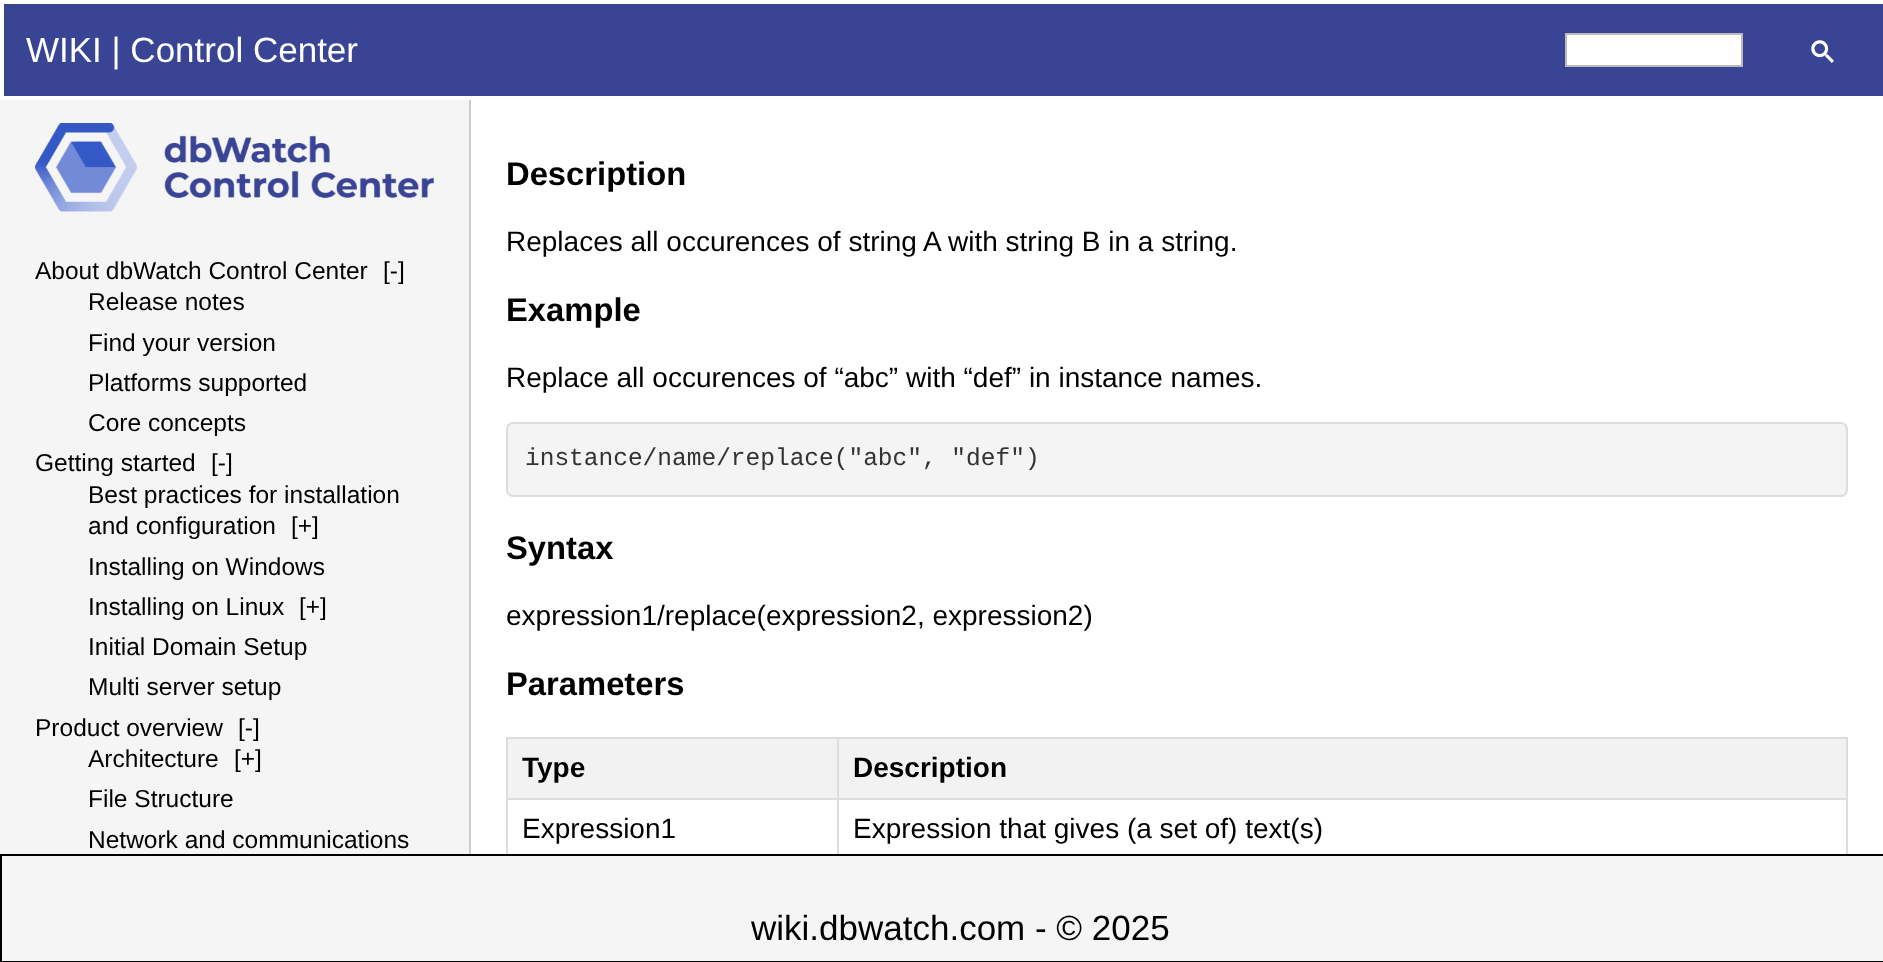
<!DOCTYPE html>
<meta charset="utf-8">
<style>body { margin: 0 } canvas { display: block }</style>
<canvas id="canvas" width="1883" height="962"></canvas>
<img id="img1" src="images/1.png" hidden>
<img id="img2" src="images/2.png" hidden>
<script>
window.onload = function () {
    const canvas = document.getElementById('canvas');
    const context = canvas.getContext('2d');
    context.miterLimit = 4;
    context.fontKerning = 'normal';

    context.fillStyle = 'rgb(255, 255, 255)';
    context.fillRect(0, 0, 1883, 962);
    context.fillStyle = 'rgb(57, 68, 148)';
    context.fillRect(4, 4, 1879, 92);
    context.fillStyle = 'rgb(255, 255, 255)';
    context.beginPath();
    context.rect(1566, 34, 176, 32);
    context.fill();
    context.strokeStyle = 'rgb(187, 187, 187)';
    context.lineWidth = 2;
    context.stroke();
    context.drawImage(document.getElementById('img1'), 1811, 40, 23, 23);
    context.fillStyle = 'rgb(245, 245, 245)';
    context.fillRect(0, 100, 469, 754);
    context.fillStyle = 'rgb(204, 204, 204)';
    context.fillRect(469, 100, 2, 754);
    context.drawImage(document.getElementById('img2'), 35, 123, 399, 89);
    context.fillStyle = 'rgb(244, 244, 244)';
    context.beginPath();
    context.roundRect(507, 423, 1340, 73, 6);
    context.fill();
    context.strokeStyle = 'rgb(221, 221, 221)';
    context.stroke();
    context.fillStyle = 'rgb(242, 242, 242)';
    context.fillRect(508, 739, 329, 59);
    context.fillStyle = 'rgb(221, 221, 221)';
    context.fillRect(837, 737, 1011, 2);
    context.fillRect(837, 798, 1011, 2);
    context.fillRect(837, 798, 2, 63);
    context.fillRect(506, 798, 332, 2);
    context.fillRect(837, 737, 2, 63);
    context.fillRect(506, 737, 332, 2);
    context.fillRect(506, 798, 2, 63);
    context.fillRect(506, 737, 2, 63);
    context.fillStyle = 'rgb(242, 242, 242)';
    context.fillRect(839, 739, 1007, 59);
    context.fillStyle = 'rgb(221, 221, 221)';
    context.fillRect(1846, 798, 2, 63);
    context.fillRect(1846, 737, 2, 63);
    context.fillStyle = 'rgb(245, 245, 245)';
    context.beginPath();
    context.rect(1, 855, 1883, 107);
    context.fill();
    context.strokeStyle = 'rgb(0, 0, 0)';
    context.stroke();
    context.font = '35px Liberation Sans';
    context.fillStyle = 'rgb(255, 255, 255)';
    context.fillText('WIKI | Control Center', 26, 62);
    context.font = '24.5px Liberation Sans';
    context.fillStyle = 'rgb(0, 0, 0)';
    context.fillText('About dbWatch Control Center', 35, 279);
    context.fillText('[-]', 383, 279);
    context.fillText('Release notes', 88, 310);
    context.fillText('Find your version', 88, 351);
    context.fillText('Platforms supported', 88, 391);
    context.fillText('Core concepts', 88, 431);
    context.fillText('Getting started', 35, 471);
    context.fillText('[-]', 211, 471);
    context.fillText('Best practices for installation', 88, 503);
    context.fillText('and configuration', 88, 534);
    context.fillText('[+]', 291, 534);
    context.fillText('Installing on Windows', 88, 575);
    context.fillText('Installing on Linux', 88, 615);
    context.fillText('[+]', 299, 615);
    context.fillText('Initial Domain Setup', 88, 655);
    context.fillText('Multi server setup', 88, 695);
    context.fillText('Product overview', 35, 736);
    context.fillText('[-]', 238, 736);
    context.fillText('Architecture', 88, 767);
    context.fillText('[+]', 234, 767);
    context.fillText('File Structure', 88, 807);
    context.fillText('Network and communications', 88, 848);
    context.font = 'bold 32.75px Liberation Sans';
    context.fillText('Description', 506, 185);
    context.font = '28px Liberation Sans';
    context.fillText('Replaces all occurences of string A with string B in a string.', 506, 251);
    context.font = 'bold 32.75px Liberation Sans';
    context.fillText('Example', 506, 321);
    context.font = '28px Liberation Sans';
    context.fillText('Replace all occurences of “abc” with “def” in instance names.', 506, 387);
    context.font = '24.5px Liberation Mono';
    context.fillStyle = 'rgb(51, 51, 51)';
    context.fillText('instance/name/replace("abc", "def")', 525, 465);
    context.font = 'bold 32.75px Liberation Sans';
    context.fillStyle = 'rgb(0, 0, 0)';
    context.fillText('Syntax', 506, 559);
    context.font = '28px Liberation Sans';
    context.fillText('expression1/replace(expression2, expression2)', 506, 625);
    context.font = 'bold 32.75px Liberation Sans';
    context.fillText('Parameters', 506, 695);
    context.font = 'bold 28px Liberation Sans';
    context.fillText('Type', 522, 777);
    context.fillText('Description', 853, 777);
    context.font = '28px Liberation Sans';
    context.fillText('Expression1', 522, 838);
    context.fillText('Expression that gives (a set of) text(s)', 853, 838);
    context.font = '35px Liberation Sans';
    context.fillText('wiki.dbwatch.com - © 2025', 751, 940);
};
</script>
